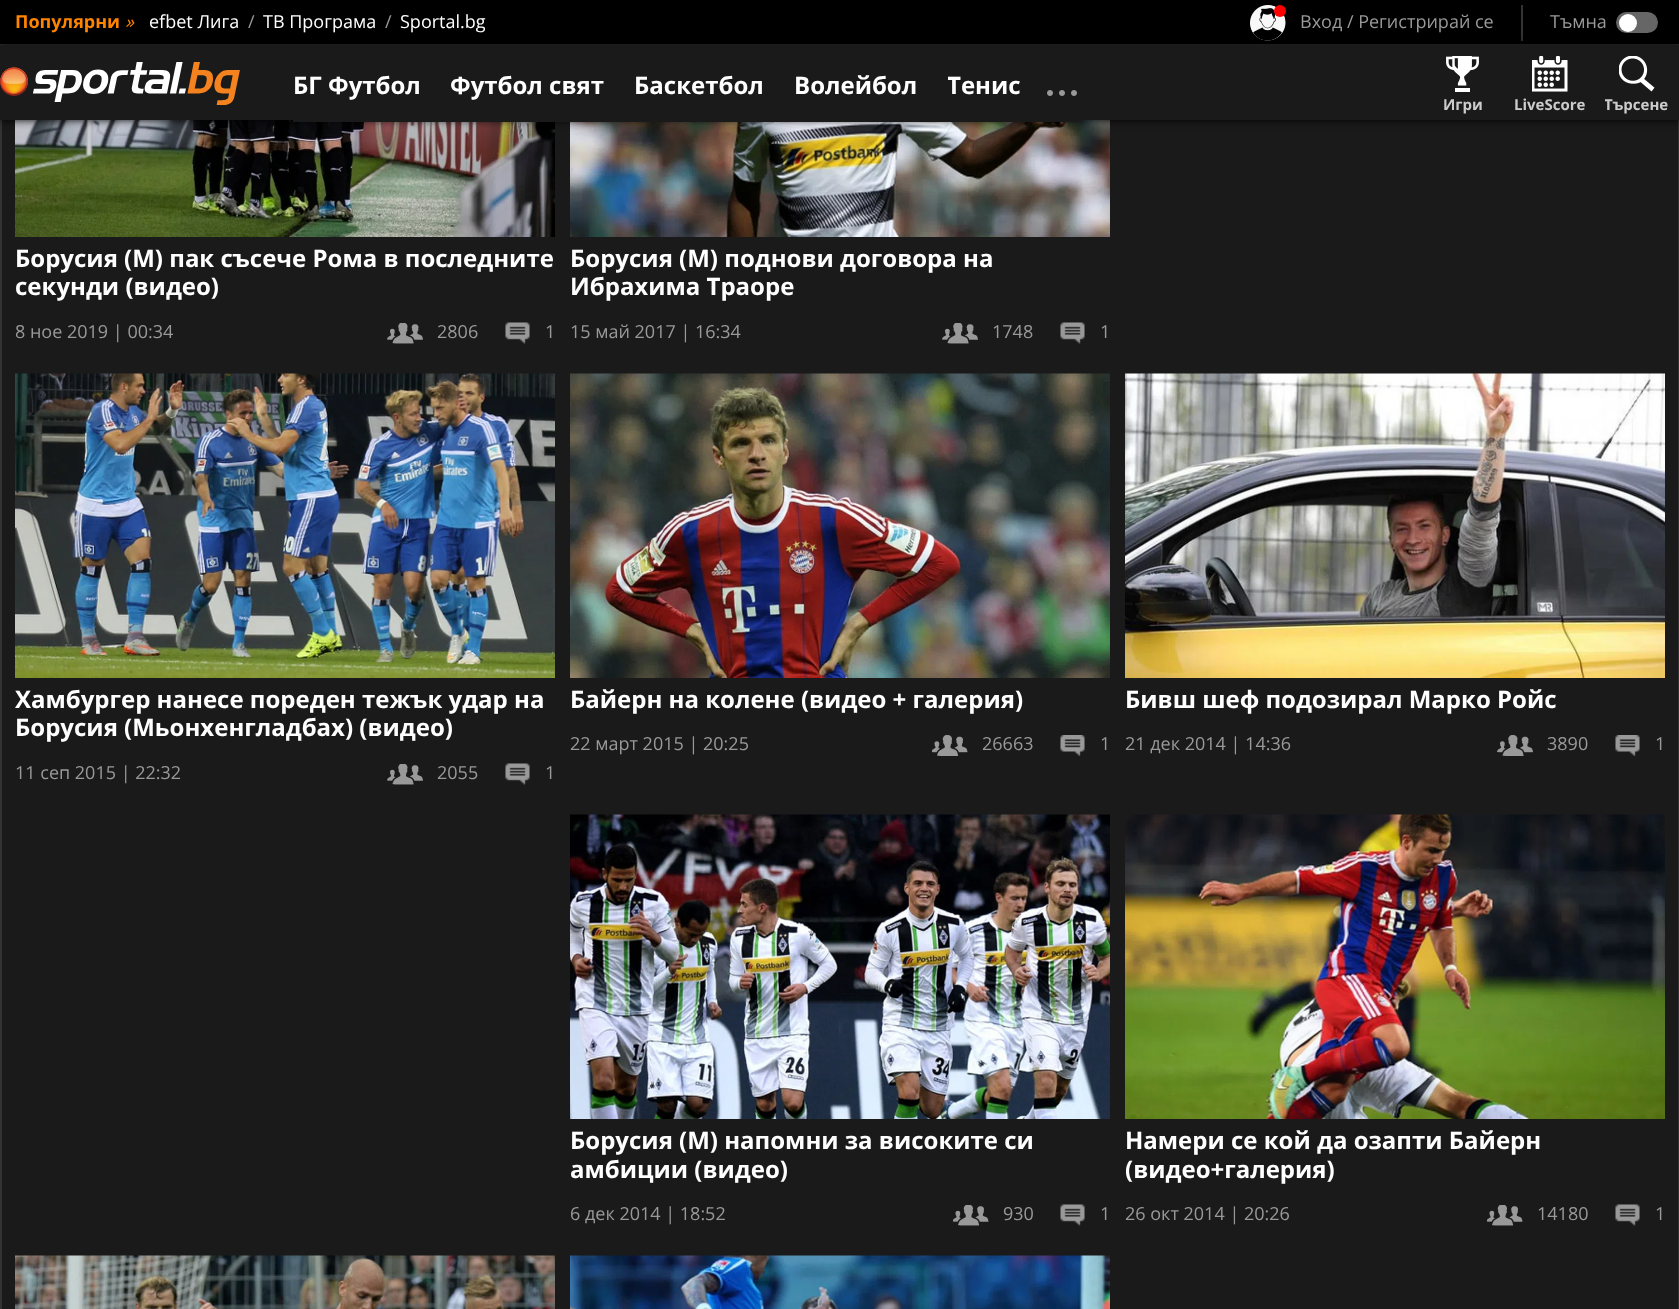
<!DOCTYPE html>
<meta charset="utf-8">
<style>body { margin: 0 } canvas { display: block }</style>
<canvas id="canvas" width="1679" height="1309"></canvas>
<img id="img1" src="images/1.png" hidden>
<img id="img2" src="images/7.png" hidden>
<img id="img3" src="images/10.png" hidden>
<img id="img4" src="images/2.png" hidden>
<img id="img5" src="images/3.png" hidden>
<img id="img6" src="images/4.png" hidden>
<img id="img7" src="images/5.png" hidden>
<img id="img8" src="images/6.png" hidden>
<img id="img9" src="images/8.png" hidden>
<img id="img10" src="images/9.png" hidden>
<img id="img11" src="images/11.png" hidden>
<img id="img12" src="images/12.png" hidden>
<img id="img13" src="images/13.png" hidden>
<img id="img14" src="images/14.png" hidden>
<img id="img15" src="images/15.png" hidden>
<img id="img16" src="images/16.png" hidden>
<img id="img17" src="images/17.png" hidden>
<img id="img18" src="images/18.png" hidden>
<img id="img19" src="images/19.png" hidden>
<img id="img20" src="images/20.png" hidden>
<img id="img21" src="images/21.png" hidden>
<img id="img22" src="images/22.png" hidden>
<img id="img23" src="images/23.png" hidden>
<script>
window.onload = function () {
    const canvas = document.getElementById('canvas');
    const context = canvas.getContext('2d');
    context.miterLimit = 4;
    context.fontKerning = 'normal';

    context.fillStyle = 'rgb(26, 26, 26)';
    context.fillRect(0, 0, 1679, 1309);
    context.strokeStyle = 'rgb(51, 51, 51)';
    context.lineWidth = 2;
    context.strokeRect(1, -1, 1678, 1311);
    context.fillStyle = 'rgb(0, 0, 0)';
    context.fillRect(0, 0, 1679, 44);
    context.fillStyle = 'rgb(51, 51, 51)';
    context.fillRect(0, 44, 1679, 1);
    context.drawImage(document.getElementById('img1'), 1250, 5, 36, 36);
    context.fillStyle = 'rgb(255, 0, 0)';
    context.beginPath();
    context.arc(1280, 11, 6, 0, 2 * Math.PI);
    context.fill();
    context.fillStyle = 'rgb(51, 51, 51)';
    context.fillRect(1521, 5, 2, 36);
    context.fillStyle = 'rgb(102, 102, 102)';
    context.beginPath();
    context.roundRect(1616, 12, 42, 21, 10.5);
    context.fill();
    context.fillStyle = 'rgb(255, 255, 255)';
    context.beginPath();
    context.arc(1628, 23, 9, 0, 2 * Math.PI);
    context.fill();
    context.drawImage(document.getElementById('img2'), 15, 120, 540, 117);
    context.drawImage(document.getElementById('img3'), 570, 120, 540, 117);
    context.fillStyle = 'rgba(0, 0, 0, 0.99)';
    context.filter = 'blur(4px)';
    context.beginPath();
    context.rect(0, 45, 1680, 75);
    context.fill();
    context.filter = 'none';
    context.fillStyle = 'rgb(26, 26, 26)';
    context.fillRect(0, 45, 1679, 75);
    context.drawImage(document.getElementById('img4'), 0, 62, 240, 43);
    context.fillRect(293, 120, 789, 2);
    context.drawImage(document.getElementById('img5'), 1047, 90, 30, 6);
    context.drawImage(document.getElementById('img6'), 1446, 56, 33, 36);
    context.drawImage(document.getElementById('img7'), 1532, 56, 36, 36);
    context.drawImage(document.getElementById('img8'), 1619, 56, 36, 36);
    context.drawImage(document.getElementById('img9'), 387, 323, 36, 21);
    context.drawImage(document.getElementById('img10'), 505, 322, 25, 22);
    context.drawImage(document.getElementById('img9'), 942, 323, 36, 21);
    context.drawImage(document.getElementById('img11'), 1060, 322, 25, 22);
    context.drawImage(document.getElementById('img12'), 15, 373, 540, 305);
    context.drawImage(document.getElementById('img9'), 387, 764, 36, 21);
    context.drawImage(document.getElementById('img10'), 505, 763, 25, 22);
    context.drawImage(document.getElementById('img13'), 570, 373, 540, 305);
    context.drawImage(document.getElementById('img14'), 932, 735, 36, 21);
    context.drawImage(document.getElementById('img15'), 1060, 735, 25, 21);
    context.drawImage(document.getElementById('img16'), 1125, 373, 540, 305);
    context.drawImage(document.getElementById('img17'), 1497, 735, 36, 21);
    context.drawImage(document.getElementById('img18'), 1615, 735, 25, 21);
    context.drawImage(document.getElementById('img19'), 570, 814, 540, 305);
    context.drawImage(document.getElementById('img20'), 953, 1205, 36, 21);
    context.drawImage(document.getElementById('img11'), 1060, 1204, 25, 22);
    context.drawImage(document.getElementById('img21'), 1125, 814, 540, 305);
    context.drawImage(document.getElementById('img20'), 1487, 1205, 36, 21);
    context.drawImage(document.getElementById('img10'), 1615, 1204, 25, 22);
    context.drawImage(document.getElementById('img22'), 15, 1255, 540, 54);
    context.drawImage(document.getElementById('img23'), 570, 1255, 540, 54);
    context.font = 'bold 18px Open Sans';
    context.fillStyle = 'rgb(255, 132, 0)';
    context.fillText('Популярни', 15, 28);
    context.font = 'italic 18px Open Sans';
    context.fillText('»', 125, 28);
    context.font = '18px Open Sans';
    context.fillStyle = 'rgb(255, 255, 255)';
    context.fillText('efbet Лига', 149, 28);
    context.fillStyle = 'rgb(153, 153, 153)';
    context.fillText('/', 248, 28);
    context.fillStyle = 'rgb(255, 255, 255)';
    context.fillText('ТВ Програма', 263, 28);
    context.fillStyle = 'rgb(153, 153, 153)';
    context.fillText('/', 385, 28);
    context.fillStyle = 'rgb(255, 255, 255)';
    context.fillText('Sportal.bg', 400, 28);
    context.fillStyle = 'rgb(153, 153, 153)';
    context.fillText('Вход / Регистрирай се', 1300, 28);
    context.fillText('Тъмна', 1550, 28);
    context.font = 'bold 24px Open Sans';
    context.fillStyle = 'rgb(255, 255, 255)';
    context.fillText('БГ Футбол', 293, 94);
    context.fillText('Футбол свят', 450, 94);
    context.fillText('Баскетбол', 634, 94);
    context.fillText('Волейбол', 794, 94);
    context.save();
    context.beginPath();
    context.rect(948, 50, 74, 72);
    context.clip();
    context.fillText('Тенис', 947, 94);
    context.restore();
    context.font = 'bold 15px Open Sans';
    context.fillStyle = 'rgb(204, 204, 204)';
    context.fillText('Игри', 1443, 110);
    context.fillText('LiveScore', 1514, 110);
    context.save();
    context.beginPath();
    context.rect(1605, 96, 63, 20);
    context.clip();
    context.fillText('Търсене', 1604, 110);
    context.restore();
    context.font = 'bold 24px Open Sans';
    context.fillStyle = 'rgb(255, 255, 255)';
    context.fillText('Борусия (М) пак съсече Рома в последните', 15, 267);
    context.fillText('секунди (видео)', 15, 295);
    context.font = '18px Open Sans';
    context.fillStyle = 'rgb(153, 153, 153)';
    context.fillText('8 ное 2019 | 00:34', 15, 338);
    context.fillText('2806', 437, 338);
    context.fillText('1', 545, 338);
    context.font = 'bold 24px Open Sans';
    context.fillStyle = 'rgb(255, 255, 255)';
    context.fillText('Борусия (М) поднови договора на', 570, 267);
    context.fillText('Ибрахима Траоре', 570, 295);
    context.font = '18px Open Sans';
    context.fillStyle = 'rgb(153, 153, 153)';
    context.fillText('15 май 2017 | 16:34', 570, 338);
    context.fillText('1748', 992, 338);
    context.fillText('1', 1100, 338);
    context.font = 'bold 24px Open Sans';
    context.fillStyle = 'rgb(255, 255, 255)';
    context.fillText('Хамбургер нанесе пореден тежък удар на', 15, 708);
    context.fillText('Борусия (Мьонхенгладбах) (видео)', 15, 736);
    context.font = '18px Open Sans';
    context.fillStyle = 'rgb(153, 153, 153)';
    context.fillText('11 сеп 2015 | 22:32', 15, 779);
    context.fillText('2055', 437, 779);
    context.fillText('1', 545, 779);
    context.font = 'bold 24px Open Sans';
    context.fillStyle = 'rgb(255, 255, 255)';
    context.fillText('Байерн на колене (видео + галерия)', 570, 708);
    context.font = '18px Open Sans';
    context.fillStyle = 'rgb(153, 153, 153)';
    context.fillText('22 март 2015 | 20:25', 570, 750);
    context.fillText('26663', 982, 750);
    context.fillText('1', 1100, 750);
    context.font = 'bold 24px Open Sans';
    context.fillStyle = 'rgb(255, 255, 255)';
    context.fillText('Бивш шеф подозирал Марко Ройс', 1125, 708);
    context.font = '18px Open Sans';
    context.fillStyle = 'rgb(153, 153, 153)';
    context.fillText('21 дек 2014 | 14:36', 1125, 750);
    context.fillText('3890', 1547, 750);
    context.fillText('1', 1655, 750);
    context.font = 'bold 24px Open Sans';
    context.fillStyle = 'rgb(255, 255, 255)';
    context.fillText('Борусия (М) напомни за високите си', 570, 1149);
    context.fillText('амбиции (видео)', 570, 1178);
    context.font = '18px Open Sans';
    context.fillStyle = 'rgb(153, 153, 153)';
    context.fillText('6 дек 2014 | 18:52', 570, 1220);
    context.fillText('930', 1003, 1220);
    context.fillText('1', 1100, 1220);
    context.font = 'bold 24px Open Sans';
    context.fillStyle = 'rgb(255, 255, 255)';
    context.fillText('Намери се кой да озапти Байерн', 1125, 1149);
    context.fillText('(видео+галерия)', 1125, 1178);
    context.font = '18px Open Sans';
    context.fillStyle = 'rgb(153, 153, 153)';
    context.fillText('26 окт 2014 | 20:26', 1125, 1220);
    context.fillText('14180', 1537, 1220);
    context.fillText('1', 1655, 1220);
};
</script>
